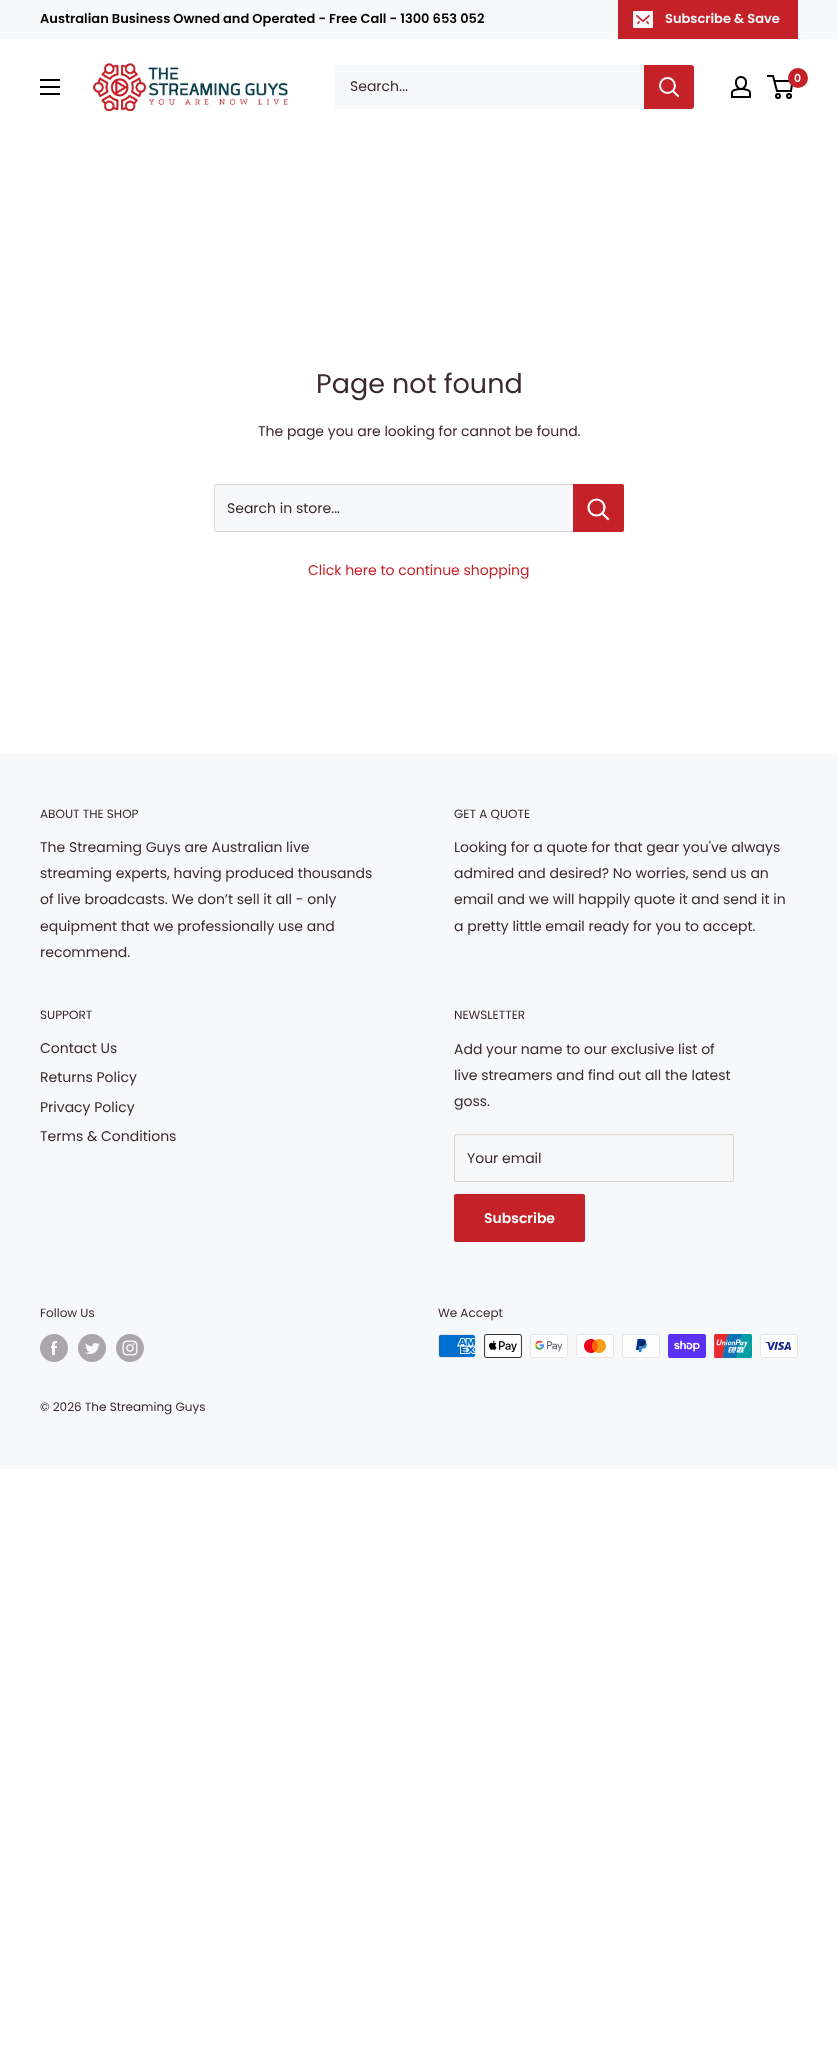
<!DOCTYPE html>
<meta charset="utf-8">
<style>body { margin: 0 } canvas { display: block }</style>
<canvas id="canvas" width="838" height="2070"></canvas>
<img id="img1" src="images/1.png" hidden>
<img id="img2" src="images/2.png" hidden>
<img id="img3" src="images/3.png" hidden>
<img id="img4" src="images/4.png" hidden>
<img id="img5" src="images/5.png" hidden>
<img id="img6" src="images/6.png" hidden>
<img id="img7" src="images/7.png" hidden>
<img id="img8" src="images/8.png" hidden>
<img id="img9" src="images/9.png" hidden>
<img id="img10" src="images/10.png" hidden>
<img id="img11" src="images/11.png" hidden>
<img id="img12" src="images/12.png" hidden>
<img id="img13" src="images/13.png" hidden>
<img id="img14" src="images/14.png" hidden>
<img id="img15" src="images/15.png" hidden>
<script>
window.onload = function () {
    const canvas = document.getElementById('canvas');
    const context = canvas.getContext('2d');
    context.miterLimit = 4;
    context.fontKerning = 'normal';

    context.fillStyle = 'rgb(255, 255, 255)';
    context.fillRect(0, 0, 838, 2070);
    context.fillStyle = 'rgb(247, 248, 250)';
    context.fillRect(0, 0, 838, 39);
    context.fillStyle = 'rgb(197, 33, 40)';
    context.fillRect(618, 0, 180, 39);
    context.drawImage(document.getElementById('img1'), 633, 11, 20, 17);
    context.drawImage(document.getElementById('img2'), 92, 63, 196, 49);
    context.drawImage(document.getElementById('img3'), 731, 76, 20, 22);
    context.beginPath();
    context.arc(778, 96, 2, 0, 2 * Math.PI);
    context.strokeStyle = 'rgb(0, 0, 0)';
    context.lineWidth = 2;
    context.stroke();
    context.beginPath();
    context.arc(789, 96, 2, 0, 2 * Math.PI);
    context.stroke();
    context.beginPath();
    context.moveTo(774.5, 81);
    context.lineTo(792.5, 81);
    context.lineTo(791, 91);
    context.lineTo(777, 91);
    context.lineTo(773, 76);
    context.lineTo(767, 76);
    context.stroke();
    context.beginPath();
    context.arc(798, 78, 10, 0, 2 * Math.PI);
    context.fill();
    context.drawImage(document.getElementById('img4'), 40, 79, 20, 16);
    context.fillStyle = 'rgb(247, 248, 250)';
    context.beginPath();
    context.roundRect(335, 65, 359, 44, 3);
    context.fill();
    context.fillStyle = 'rgb(197, 33, 40)';
    context.beginPath();
    context.roundRect(644, 65, 50, 44, [0, 3, 3, 0]);
    context.fill();
    context.beginPath();
    context.moveTo(678, 96);
    context.lineTo(673, 91);
    context.strokeStyle = 'rgb(247, 248, 250)';
    context.lineCap = 'square';
    context.stroke();
    context.beginPath();
    context.arc(667.5, 85.5, 7.5, 0, 2 * Math.PI);
    context.stroke();
    context.fillStyle = 'rgb(247, 248, 250)';
    context.beginPath();
    context.roundRect(214, 484, 359, 48, [2, 0, 0, 2]);
    context.fill();
    context.fillStyle = 'rgb(243, 243, 243)';
    context.beginPath();
    context.moveTo(216, 486);
    context.lineTo(573, 486);
    context.lineTo(573, 485);
    context.lineTo(216, 485);
    context.bezierCurveTo(215, 485, 215, 486, 215, 487);
    context.bezierCurveTo(215, 486, 215, 486, 216, 486);
    context.closePath();
    context.fill();
    context.fillStyle = 'rgb(220, 213, 207)';
    context.fillRect(215, 484, 358, 1);
    context.fillRect(215, 531, 358, 1);
    context.fillRect(214, 485, 1, 46);
    context.fillStyle = 'rgb(197, 33, 40)';
    context.beginPath();
    context.roundRect(573, 484, 51, 48, [0, 2, 2, 0]);
    context.fill();
    context.beginPath();
    context.moveTo(608, 519);
    context.lineTo(602.5, 513.5);
    context.strokeStyle = 'rgb(255, 255, 255)';
    context.lineWidth = 2.2;
    context.stroke();
    context.beginPath();
    context.arc(596.5, 507.5, 8, 0, 2 * Math.PI);
    context.stroke();
    context.fillStyle = 'rgb(247, 248, 250)';
    context.fillRect(0, 754, 838, 715);
    context.fillStyle = 'rgb(243, 243, 243)';
    context.beginPath();
    context.moveTo(456, 1136);
    context.lineTo(732, 1136);
    context.bezierCurveTo(733, 1136, 733, 1136, 733, 1137);
    context.bezierCurveTo(733, 1136, 733, 1135, 732, 1135);
    context.lineTo(456, 1135);
    context.lineTo(455, 1135);
    context.lineTo(455, 1137);
    context.bezierCurveTo(455, 1136, 455, 1136, 456, 1136);
    context.closePath();
    context.fill();
    context.beginPath();
    context.roundRect(454.5, 1134.5, 279, 47, 1.5);
    context.strokeStyle = 'rgb(220, 213, 207)';
    context.lineWidth = 1;
    context.stroke();
    context.fillStyle = 'rgb(197, 33, 40)';
    context.beginPath();
    context.roundRect(454, 1194, 131, 48, 2);
    context.fill();
    context.drawImage(document.getElementById('img5'), 40, 1334, 28, 28);
    context.drawImage(document.getElementById('img6'), 78, 1334, 28, 28);
    context.drawImage(document.getElementById('img7'), 116, 1334, 28, 28);
    context.drawImage(document.getElementById('img8'), 438, 1334, 38, 24);
    context.drawImage(document.getElementById('img9'), 484, 1334, 38, 24);
    context.drawImage(document.getElementById('img10'), 530, 1334, 38, 24);
    context.drawImage(document.getElementById('img11'), 576, 1334, 38, 24);
    context.drawImage(document.getElementById('img12'), 622, 1334, 38, 24);
    context.drawImage(document.getElementById('img13'), 668, 1334, 38, 24);
    context.drawImage(document.getElementById('img14'), 714, 1334, 38, 24);
    context.drawImage(document.getElementById('img15'), 760, 1334, 38, 24);
    context.font = '600 13px Poppins';
    context.fillStyle = 'rgb(0, 0, 0)';
    context.fillText('Australian Business Owned and Operated - Free Call - 1300 653 052', 40, 23);
    context.fillStyle = 'rgb(247, 248, 250)';
    context.fillText('Subscribe & Save', 665, 23);
    context.font = '600 11px Poppins';
    context.fillText('0', 794, 82);
    context.font = '14px Poppins';
    context.fillStyle = 'rgb(58, 42, 47)';
    context.fillText('Search...', 350, 91);
    context.font = '27px Poppins';
    context.fillText('Page not found', 316, 393);
    context.font = '14px Poppins';
    context.fillText('The page you are looking for cannot be found.', 258, 436);
    context.fillText('Search in store...', 227, 513);
    context.fillStyle = 'rgb(197, 33, 40)';
    context.fillText('Click here to continue shopping', 308, 575);
    context.font = '12px Poppins';
    context.fillStyle = 'rgb(58, 42, 47)';
    context.fillText('ABOUT THE SHOP', 40, 818);
    context.font = '14px Poppins';
    context.fillText('The Streaming Guys are Australian live', 40, 852);
    context.fillText('streaming experts, having produced thousands', 40, 878);
    context.fillText('of live broadcasts. We don’t sell it all - only', 40, 904);
    context.fillText('equipment that we professionally use and', 40, 931);
    context.fillText('recommend.', 40, 957);
    context.font = '12px Poppins';
    context.fillText('GET A QUOTE', 454, 818);
    context.font = '14px Poppins';
    context.fillText('Looking for a quote for that gear you\'ve always', 454, 852);
    context.fillText('admired and desired? No worries, send us an', 454, 878);
    context.fillText('email and we will happily quote it and send it in', 454, 904);
    context.fillText('a pretty little email ready for you to accept.', 454, 931);
    context.font = '12px Poppins';
    context.fillText('SUPPORT', 40, 1019);
    context.font = '14px Poppins';
    context.fillText('Contact Us', 40, 1053);
    context.fillText('Returns Policy', 40, 1082);
    context.fillText('Privacy Policy', 40, 1112);
    context.fillText('Terms & Conditions', 40, 1141);
    context.font = '12px Poppins';
    context.fillText('NEWSLETTER', 454, 1019);
    context.font = '14px Poppins';
    context.fillText('Add your name to our exclusive list of', 454, 1054);
    context.fillText('live streamers and find out all the latest', 454, 1080);
    context.fillText('goss.', 454, 1106);
    context.fillText('Your email', 467, 1163);
    context.font = '600 14px Poppins';
    context.fillStyle = 'rgb(255, 255, 255)';
    context.fillText('Subscribe', 484, 1223);
    context.font = '12px Poppins';
    context.fillStyle = 'rgb(58, 42, 47)';
    context.fillText('Follow Us', 40, 1317);
    context.fillText('We Accept', 438, 1317);
    context.fillText('© 2026 The Streaming Guys', 40, 1411);
};
</script>
